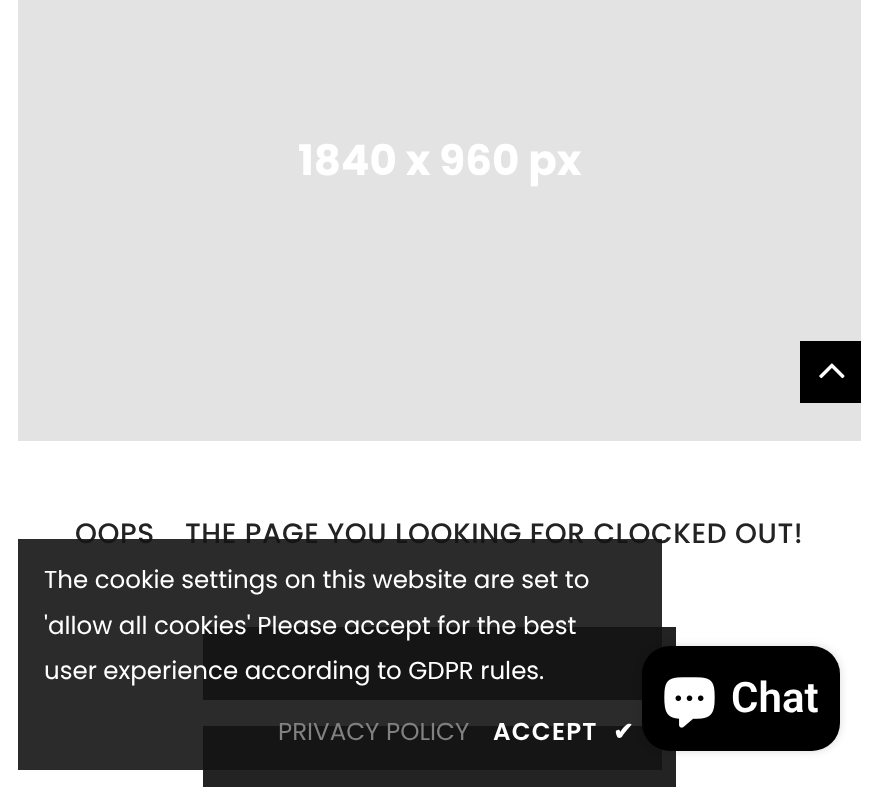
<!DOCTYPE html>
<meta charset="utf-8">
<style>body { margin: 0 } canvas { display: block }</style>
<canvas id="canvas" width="878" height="787"></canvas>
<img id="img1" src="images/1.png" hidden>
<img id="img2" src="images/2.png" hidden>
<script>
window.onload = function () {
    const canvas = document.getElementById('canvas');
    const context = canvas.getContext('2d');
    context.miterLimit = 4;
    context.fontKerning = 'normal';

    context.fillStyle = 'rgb(255, 255, 255)';
    context.fillRect(0, 0, 878, 787);
    context.fillStyle = 'rgb(227, 227, 227)';
    context.fillRect(18, 0, 843, 441);
    context.fillStyle = 'rgb(35, 35, 35)';
    context.fillRect(203, 627, 473, 73);
    context.fillRect(203, 726, 473, 61);
    context.fillStyle = 'rgb(0, 0, 0)';
    context.fillRect(800, 341, 61, 62);
    context.drawImage(document.getElementById('img1'), 819, 363, 26, 16);
    context.font = 'bold 42px Poppins';
    context.fillStyle = 'rgb(255, 255, 255)';
    context.fillText('1840 x 960 px', 298, 175);
    context.letterSpacing = '0.55px';
    context.font = '500 28px Poppins';
    context.fillStyle = 'rgb(35, 35, 35)';
    context.fillText('OOPS', 75, 543);
    context.fillText('THE PAGE YOU LOOKING FOR CLOCKED OUT!', 185, 543);
    context.fillStyle = 'rgba(20, 20, 20, 0.9)';
    context.fillRect(18, 539, 644, 231);
    context.letterSpacing = '0px';
    context.font = '24.5px Poppins';
    context.fillStyle = 'rgb(255, 255, 255)';
    context.fillText('The cookie settings on this website are set to', 44, 588);
    context.fillText('\'allow all cookies\' Please accept for the best', 44, 634);
    context.fillText('user experience according to GDPR rules.', 44, 679);
    context.fillStyle = 'rgb(129, 129, 129)';
    context.fillText('PRIVACY POLICY', 278, 740);
    context.letterSpacing = '1.25px';
    context.font = '600 24.5px Poppins';
    context.fillStyle = 'rgb(255, 255, 255)';
    context.fillText('ACCEPT', 493, 740);
    context.font = 'bold 24.5px DejaVu Sans';
    context.fillText('✔', 613, 740);
    context.fillStyle = 'rgba(0, 0, 0, 0.15)';
    context.filter = 'blur(4.5px)';
    context.beginPath();
    context.roundRect(642, 646, 198, 105, 28);
    context.fill();
    context.filter = 'none';
    context.fillStyle = 'rgb(0, 0, 0)';
    context.beginPath();
    context.roundRect(642, 646, 198, 105, 28);
    context.fill();
    context.drawImage(document.getElementById('img2'), 664, 677, 51, 51);
    context.letterSpacing = '0px';
    context.font = '600 42px Roboto';
    context.fillStyle = 'rgb(255, 255, 255)';
    context.fillText('Chat', 731, 712);
};
</script>
